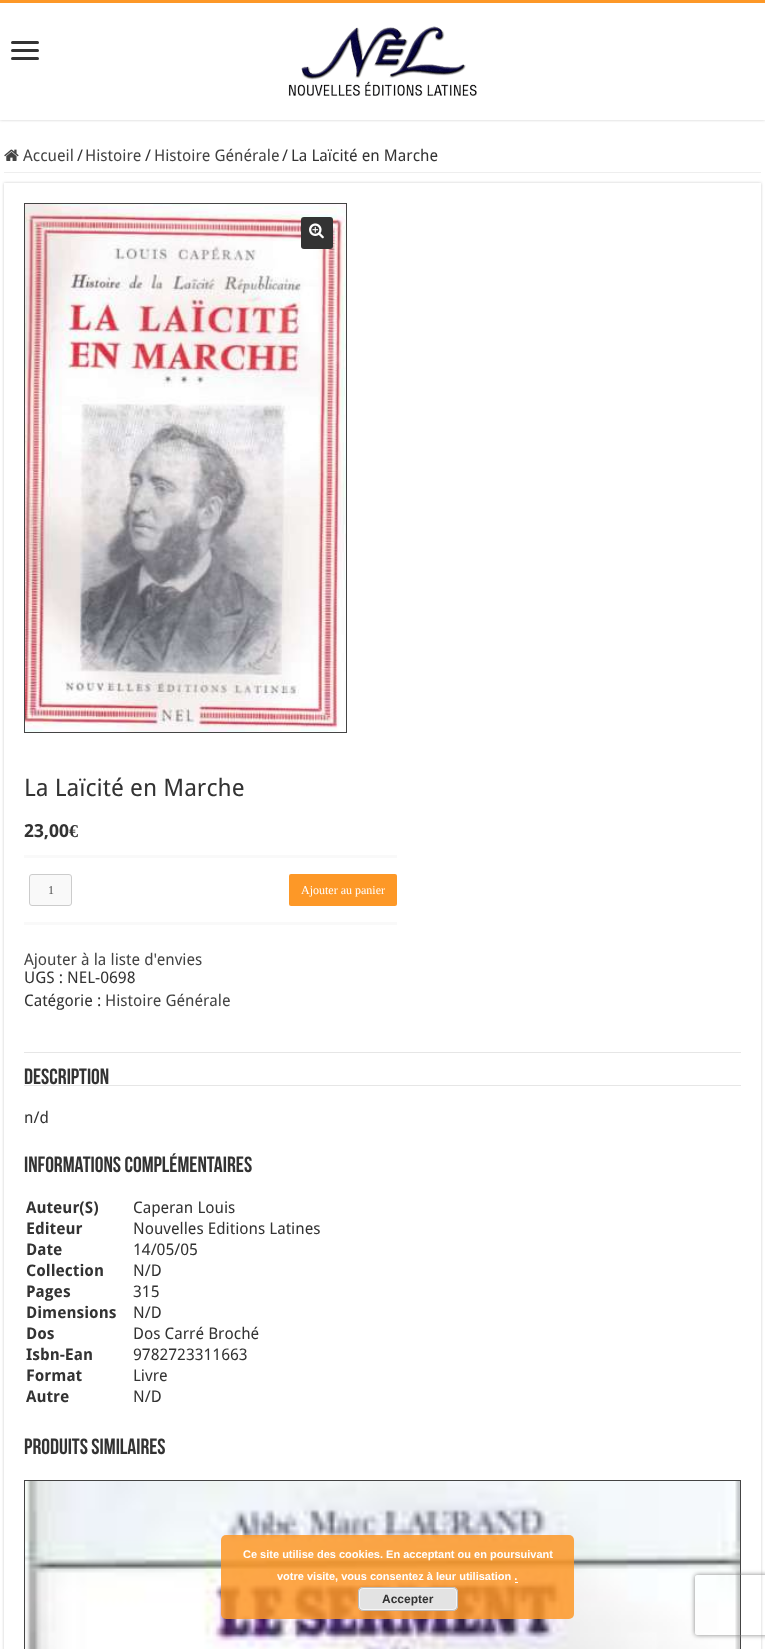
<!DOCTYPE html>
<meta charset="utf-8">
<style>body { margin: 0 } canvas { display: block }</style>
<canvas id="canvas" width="765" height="1649"></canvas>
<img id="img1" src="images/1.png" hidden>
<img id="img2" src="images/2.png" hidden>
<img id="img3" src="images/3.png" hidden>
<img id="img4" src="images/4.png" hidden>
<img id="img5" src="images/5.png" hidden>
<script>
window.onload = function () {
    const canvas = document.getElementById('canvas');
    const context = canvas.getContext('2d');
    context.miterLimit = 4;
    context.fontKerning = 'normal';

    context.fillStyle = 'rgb(255, 255, 255)';
    context.fillRect(0, 0, 765, 1649);
    context.save();
    context.beginPath();
    context.rect(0, 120, 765, 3);
    context.clip();
    context.fillStyle = 'rgb(202, 202, 202)';
    context.filter = 'blur(1.5px)';
    context.beginPath();
    context.rect(0, 0, 765, 120);
    context.fill();
    context.filter = 'none';
    context.restore();
    context.fillStyle = 'rgb(253, 152, 39)';
    context.fillRect(0, 0, 765, 3);
    context.fillStyle = 'rgb(51, 51, 51)';
    context.beginPath();
    context.roundRect(11, 41, 28, 3, 1.5);
    context.fill();
    context.beginPath();
    context.roundRect(11, 49, 28, 3, 1.5);
    context.fill();
    context.beginPath();
    context.roundRect(11, 57, 28, 3, 1.5);
    context.fill();
    context.drawImage(document.getElementById('img1'), 288, 26, 189, 70);
    context.fillStyle = 'rgb(238, 238, 238)';
    context.fillRect(4, 172, 757, 1);
    context.drawImage(document.getElementById('img2'), 4, 149, 15, 12);
    context.save();
    context.beginPath();
    context.moveTo(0, 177);
    context.lineTo(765, 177);
    context.lineTo(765, 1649);
    context.lineTo(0, 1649);
    context.closePath();
    context.moveTo(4, 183);
    context.lineTo(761, 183);
    context.lineTo(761, 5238);
    context.lineTo(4, 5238);
    context.closePath();
    context.clip('evenodd');
    context.fillStyle = 'rgb(202, 202, 202)';
    context.filter = 'blur(1.5px)';
    context.beginPath();
    context.rect(4, 183, 757, 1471);
    context.fill();
    context.filter = 'none';
    context.restore();
    context.strokeStyle = 'rgb(68, 68, 68)';
    context.strokeRect(24.5, 203.5, 322, 529);
    context.drawImage(document.getElementById('img3'), 25, 204, 321, 528);
    context.fillStyle = 'rgb(51, 51, 51)';
    context.beginPath();
    context.roundRect(301, 217, 32, 32, 3);
    context.fill();
    context.drawImage(document.getElementById('img4'), 309, 223, 15, 16);
    context.fillStyle = 'rgb(249, 249, 249)';
    context.fillRect(24, 855, 373, 3);
    context.fillRect(24, 922, 373, 3);
    context.beginPath();
    context.roundRect(29.5, 874.5, 42, 31, 2.5);
    context.fill();
    context.strokeStyle = 'rgb(204, 204, 204)';
    context.stroke();
    context.fillStyle = 'rgb(253, 152, 39)';
    context.beginPath();
    context.roundRect(289, 874, 108, 32, 2);
    context.fill();
    context.fillStyle = 'rgb(230, 230, 230)';
    context.fillRect(24, 1052, 717, 1);
    context.fillRect(24, 1085, 717, 1);
    context.strokeStyle = 'rgb(68, 68, 68)';
    context.strokeRect(24.5, 1480.5, 716, 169);
    context.drawImage(document.getElementById('img5'), 25, 1481, 715, 168);
    context.fillStyle = 'rgba(253, 152, 39, 0.85)';
    context.beginPath();
    context.roundRect(221, 1535, 353, 84, 5);
    context.fill();
    context.fillStyle = 'rgb(255, 255, 255)';
    context.fillRect(515, 1582, 3, 1);
    context.fillStyle = 'rgb(227, 227, 227)';
    context.beginPath();
    context.roundRect(358, 1587, 100, 24, 5);
    context.fill();
    context.beginPath();
    context.roundRect(359.5, 1588.5, 97, 21, 3.5);
    context.strokeStyle = 'rgb(246, 246, 246)';
    context.stroke();
    context.beginPath();
    context.roundRect(358.5, 1587.5, 99, 23, 4.5);
    context.strokeStyle = 'rgb(187, 187, 187)';
    context.stroke();
    context.save();
    context.beginPath();
    context.moveTo(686, 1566);
    context.lineTo(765, 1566);
    context.lineTo(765, 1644);
    context.lineTo(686, 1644);
    context.closePath();
    context.moveTo(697, 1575);
    context.lineTo(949, 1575);
    context.bezierCurveTo(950, 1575, 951, 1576, 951, 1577);
    context.lineTo(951, 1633);
    context.bezierCurveTo(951, 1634, 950, 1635, 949, 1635);
    context.lineTo(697, 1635);
    context.bezierCurveTo(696, 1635, 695, 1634, 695, 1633);
    context.lineTo(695, 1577);
    context.bezierCurveTo(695, 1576, 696, 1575, 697, 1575);
    context.closePath();
    context.clip('evenodd');
    context.fillStyle = 'rgb(128, 128, 128)';
    context.filter = 'blur(2.5px)';
    context.beginPath();
    context.roundRect(695, 1575, 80, 60, 2);
    context.fill();
    context.filter = 'none';
    context.restore();
    context.font = '16px Droid Sans';
    context.fillStyle = 'rgb(68, 68, 68)';
    context.fillText('Accueil', 23, 161);
    context.fillStyle = 'rgb(51, 51, 51)';
    context.fillText('/', 77, 161);
    context.fillStyle = 'rgb(68, 68, 68)';
    context.fillText('Histoire', 85, 161);
    context.fillStyle = 'rgb(51, 51, 51)';
    context.fillText('/', 145, 161);
    context.fillStyle = 'rgb(68, 68, 68)';
    context.fillText('Histoire Générale', 154, 161);
    context.fillStyle = 'rgb(51, 51, 51)';
    context.fillText('/', 282, 161);
    context.fillText('La Laïcité en Marche', 291, 161);
    context.font = '24px Droid Sans';
    context.fillText('La Laïcité en Marche', 24, 796);
    context.font = 'bold 18px Droid Sans';
    context.fillText('23,00', 24, 837);
    context.font = 'bold 18px Liberation Serif';
    context.fillText('€', 69, 837);
    context.font = '12px Liberation Serif';
    context.fillStyle = 'rgb(81, 81, 81)';
    context.fillText('1', 48, 894);
    context.fillStyle = 'rgb(255, 255, 255)';
    context.fillText('Ajouter au panier', 301, 894);
    context.font = '16px Droid Sans';
    context.fillStyle = 'rgb(68, 68, 68)';
    context.fillText('Ajouter à la liste d\'envies', 24, 965);
    context.fillStyle = 'rgb(51, 51, 51)';
    context.fillText('UGS : NEL-0698', 24, 983);
    context.fillText('Catégorie :', 24, 1006);
    context.fillStyle = 'rgb(68, 68, 68)';
    context.fillText('Histoire Générale', 105, 1006);
    context.font = 'bold 22px Bebas Neue';
    context.fillStyle = 'rgb(51, 51, 51)';
    context.fillText('Description', 24, 1084);
    context.font = '16px Droid Sans';
    context.fillText('n/d', 24, 1123);
    context.font = 'bold 22px Bebas Neue';
    context.fillText('Informations complémentaires', 24, 1172);
    context.font = 'bold 16px Droid Sans';
    context.fillText('Auteur(S)', 26, 1213);
    context.font = '16px Droid Sans';
    context.fillText('Caperan Louis', 133, 1213);
    context.font = 'bold 16px Droid Sans';
    context.fillText('Editeur', 26, 1234);
    context.font = '16px Droid Sans';
    context.fillText('Nouvelles Editions Latines', 133, 1234);
    context.font = 'bold 16px Droid Sans';
    context.fillText('Date', 26, 1255);
    context.font = '16px Droid Sans';
    context.fillText('14/05/05', 133, 1255);
    context.font = 'bold 16px Droid Sans';
    context.fillText('Collection', 26, 1276);
    context.font = '16px Droid Sans';
    context.fillText('N/D', 133, 1276);
    context.font = 'bold 16px Droid Sans';
    context.fillText('Pages', 26, 1297);
    context.font = '16px Droid Sans';
    context.fillText('315', 133, 1297);
    context.font = 'bold 16px Droid Sans';
    context.fillText('Dimensions', 26, 1318);
    context.font = '16px Droid Sans';
    context.fillText('N/D', 133, 1318);
    context.font = 'bold 16px Droid Sans';
    context.fillText('Dos', 26, 1339);
    context.font = '16px Droid Sans';
    context.fillText('Dos Carré Broché', 133, 1339);
    context.font = 'bold 16px Droid Sans';
    context.fillText('Isbn-Ean', 26, 1360);
    context.font = '16px Droid Sans';
    context.fillText('9782723311663', 133, 1360);
    context.font = 'bold 16px Droid Sans';
    context.fillText('Format', 26, 1381);
    context.font = '16px Droid Sans';
    context.fillText('Livre', 133, 1381);
    context.font = 'bold 16px Droid Sans';
    context.fillText('Autre', 26, 1402);
    context.font = '16px Droid Sans';
    context.fillText('N/D', 133, 1402);
    context.font = 'bold 22px Bebas Neue';
    context.fillText('Produits similaires', 24, 1454);
    context.font = 'bold 11px Liberation Sans';
    context.fillStyle = 'rgb(255, 255, 255)';
    context.fillText('Ce site utilise des cookies. En acceptant ou en poursuivant', 243, 1558);
    context.fillText('votre visite, vous consentez à leur utilisation .', 277, 1580);
    context.font = 'bold 12px Liberation Sans';
    context.fillStyle = 'rgb(51, 51, 51)';
    context.fillText('Accepter', 382, 1603);
};
</script>
